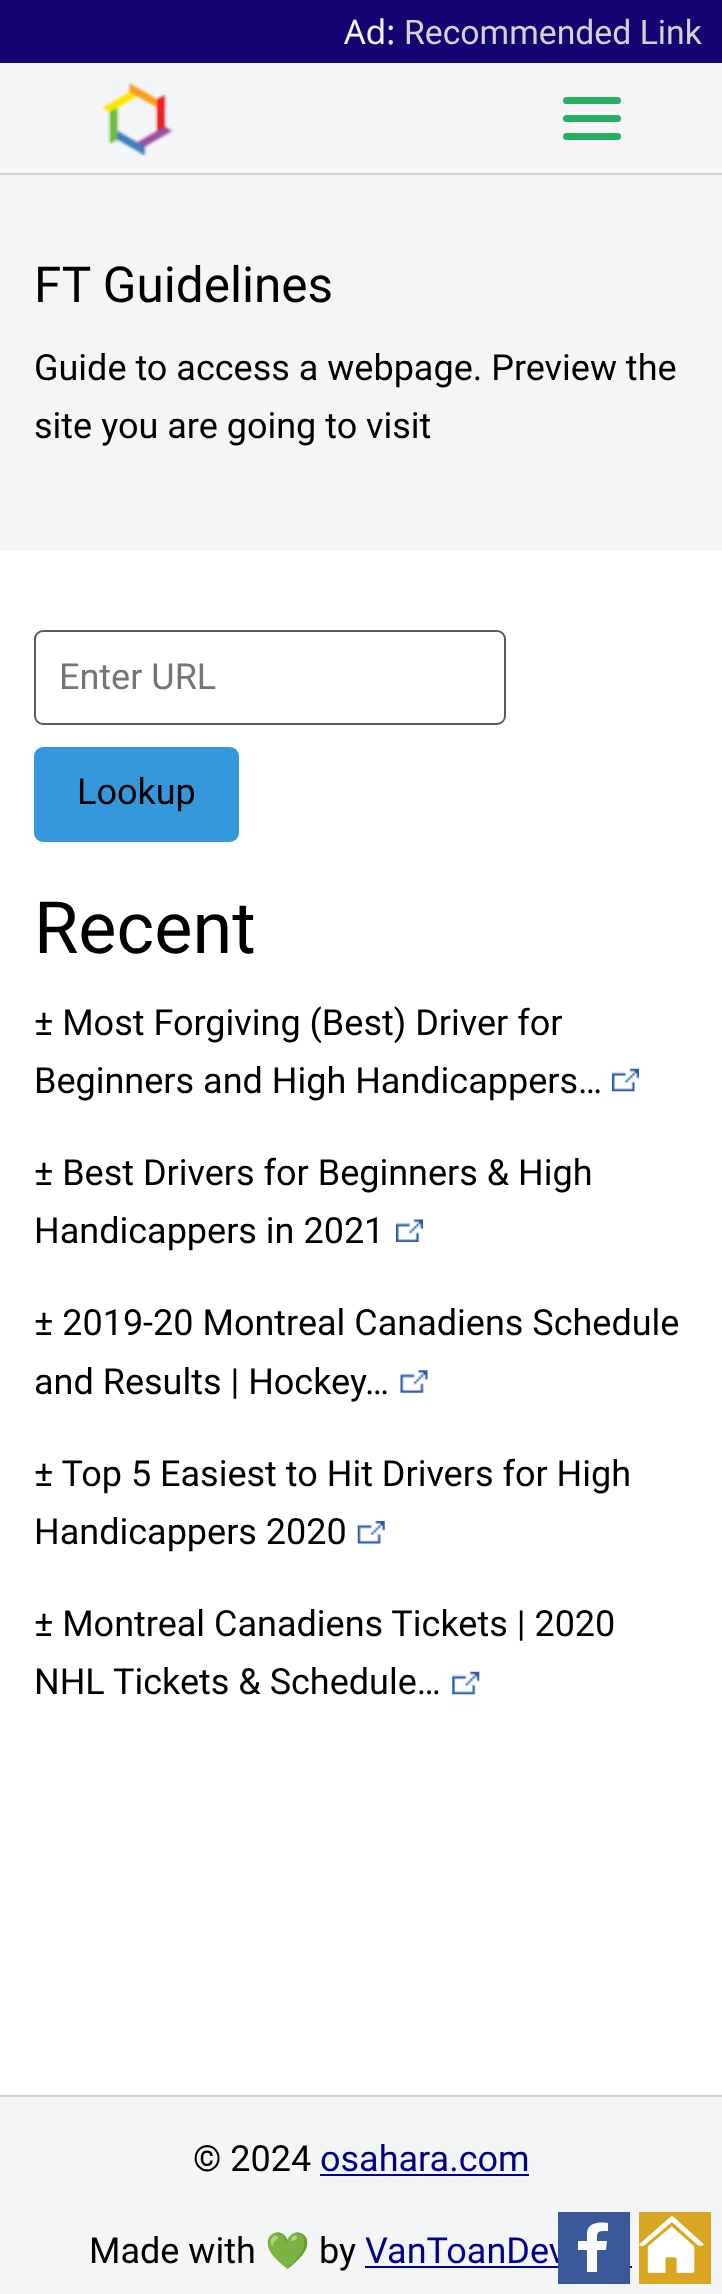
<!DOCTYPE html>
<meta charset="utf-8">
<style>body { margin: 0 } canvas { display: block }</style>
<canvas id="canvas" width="722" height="2294"></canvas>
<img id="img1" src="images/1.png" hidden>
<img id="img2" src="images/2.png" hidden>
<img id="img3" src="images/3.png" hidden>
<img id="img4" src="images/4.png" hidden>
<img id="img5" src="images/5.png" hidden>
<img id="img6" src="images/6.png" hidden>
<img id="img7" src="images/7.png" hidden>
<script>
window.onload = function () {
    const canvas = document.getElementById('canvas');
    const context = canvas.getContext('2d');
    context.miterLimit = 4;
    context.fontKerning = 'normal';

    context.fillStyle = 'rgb(255, 255, 255)';
    context.fillRect(0, 0, 722, 2294);
    context.fillStyle = 'rgb(23, 2, 114)';
    context.fillRect(0, 0, 722, 63);
    context.fillStyle = 'rgb(244, 245, 246)';
    context.fillRect(0, 63, 722, 488);
    context.fillStyle = 'rgb(209, 209, 209)';
    context.fillRect(0, 173, 722, 2);
    context.drawImage(document.getElementById('img1'), 101, 82, 73, 74);
    context.fillStyle = 'rgb(39, 174, 96)';
    context.beginPath();
    context.roundRect(563, 133, 58, 7, 3.5);
    context.fill();
    context.beginPath();
    context.roundRect(563, 115, 58, 7, 3.5);
    context.fill();
    context.beginPath();
    context.roundRect(563, 97, 58, 7, 3.5);
    context.fill();
    context.beginPath();
    context.roundRect(35, 631, 470, 93, 8);
    context.strokeStyle = 'rgb(92, 92, 92)';
    context.lineWidth = 2;
    context.stroke();
    context.fillStyle = 'rgb(52, 152, 219)';
    context.beginPath();
    context.roundRect(35, 748, 203, 93, 8);
    context.fill();
    context.strokeStyle = 'rgb(52, 152, 219)';
    context.stroke();
    context.drawImage(document.getElementById('img2'), 612, 1068, 27, 24);
    context.drawImage(document.getElementById('img3'), 396, 1219, 27, 23);
    context.drawImage(document.getElementById('img4'), 400, 1370, 28, 23);
    context.drawImage(document.getElementById('img5'), 357, 1521, 28, 23);
    context.drawImage(document.getElementById('img6'), 452, 1671, 28, 24);
    context.fillStyle = 'rgb(244, 245, 246)';
    context.fillRect(0, 2097, 722, 197);
    context.fillStyle = 'rgb(209, 209, 209)';
    context.fillRect(0, 2095, 722, 2);
    context.fillStyle = 'rgb(0, 0, 139)';
    context.fillRect(320, 2174, 209, 2);
    context.fillRect(365, 2266, 267, 2);
    context.fillStyle = 'rgb(218, 165, 32)';
    context.fillRect(639, 2212, 72, 72);
    context.drawImage(document.getElementById('img7'), 639, 2215, 65, 58);
    context.font = '33.75px Noto Sans';
    context.fillStyle = 'rgb(245, 245, 245)';
    context.fillText('Ad:', 344, 44);
    context.font = '33.75px Roboto';
    context.fillStyle = 'rgb(211, 211, 211)';
    context.fillText('Recommended Link', 404, 44);
    context.font = '49.5px Roboto';
    context.fillStyle = 'rgb(0, 0, 0)';
    context.fillText('FT Guidelines', 34, 302);
    context.font = '36px Roboto';
    context.fillText('Guide to access a webpage. Preview the', 34, 380);
    context.fillText('site you are going to visit', 34, 438);
    context.fillStyle = 'rgb(117, 117, 117)';
    context.fillText('Enter URL', 59, 689);
    context.fillStyle = 'rgb(0, 0, 0)';
    context.fillText('Lookup', 77, 804);
    context.font = '72px Roboto';
    context.fillText('Recent', 34, 953);
    context.font = '36px Roboto';
    context.fillText('± Most Forgiving (Best) Driver for', 34, 1035);
    context.fillText('Beginners and High Handicappers…', 34, 1093);
    context.fillText('± Best Drivers for Beginners & High', 34, 1185);
    context.fillText('Handicappers in 2021', 34, 1243);
    context.fillText('± 2019-20 Montreal Canadiens Schedule', 34, 1335);
    context.fillText('and Results | Hockey…', 34, 1394);
    context.fillText('± Top 5 Easiest to Hit Drivers for High', 34, 1486);
    context.fillText('Handicappers 2020', 34, 1544);
    context.fillText('± Montreal Canadiens Tickets | 2020', 34, 1636);
    context.fillText('NHL Tickets & Schedule…', 34, 1694);
    context.fillText('© 2024', 193, 2171);
    context.fillStyle = 'rgb(0, 0, 139)';
    context.fillText('osahara.com', 320, 2171);
    context.fillStyle = 'rgb(0, 0, 0)';
    context.fillText('Made with', 89, 2263);
    context.font = '36px Noto Color Emoji';
    context.fillText('💚', 265, 2263);
    context.font = '36px Roboto';
    context.fillText('by', 319, 2263);
    context.fillStyle = 'rgb(0, 0, 139)';
    context.fillText('VanToanDev', 365, 2263);
    context.fillStyle = 'rgb(59, 89, 152)';
    context.fillRect(558, 2212, 72, 72);
    context.fillStyle = 'rgb(255, 255, 255)';
    context.beginPath();
    context.moveTo(608, 2223);
    context.bezierCurveTo(600, 2222, 589, 2222, 587, 2232);
    context.lineTo(587, 2241);
    context.lineTo(578, 2241);
    context.lineTo(578, 2250);
    context.lineTo(587, 2250);
    context.lineTo(587, 2272);
    context.lineTo(597, 2272);
    context.lineTo(597, 2250);
    context.lineTo(606, 2250);
    context.lineTo(607, 2241);
    context.lineTo(597, 2241);
    context.bezierCurveTo(597, 2231, 597, 2231, 608, 2231);
    context.closePath();
    context.fill();
};
</script>
